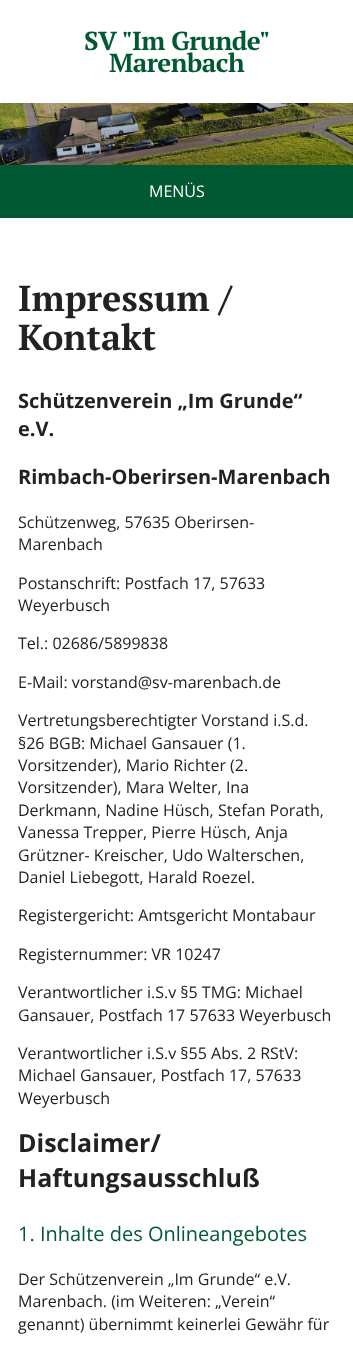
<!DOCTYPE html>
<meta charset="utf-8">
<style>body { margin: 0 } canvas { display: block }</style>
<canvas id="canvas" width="353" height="1346"></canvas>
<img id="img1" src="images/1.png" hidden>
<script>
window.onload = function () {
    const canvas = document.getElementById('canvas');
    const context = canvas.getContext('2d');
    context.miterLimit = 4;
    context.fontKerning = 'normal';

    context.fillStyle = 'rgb(255, 255, 255)';
    context.fillRect(0, 0, 353, 1346);
    context.drawImage(document.getElementById('img1'), 0, 103, 353, 62);
    context.fillStyle = 'rgb(0, 89, 50)';
    context.fillRect(0, 165, 353, 53);
    context.letterSpacing = '-0.5px';
    context.font = 'bold 26px PT Serif';
    context.fillText('SV "Im Grunde"', 84, 50);
    context.fillText('Marenbach', 109, 72);
    context.letterSpacing = '0px';
    context.font = '16px Open Sans';
    context.fillStyle = 'rgb(255, 255, 255)';
    context.fillText('MENÜS', 149, 197);
    context.font = 'bold 36px PT Serif';
    context.fillStyle = 'rgb(34, 34, 34)';
    context.fillText('Impressum /', 18, 311);
    context.fillText('Kontakt', 18, 350);
    context.font = 'bold 20px Open Sans';
    context.fillText('Schützenverein „Im Grunde“', 18, 408);
    context.fillText('e.V.', 18, 436);
    context.fillText('Rimbach-Oberirsen-Marenbach', 18, 484);
    context.font = '16px Open Sans';
    context.fillText('Schützenweg, 57635 Oberirsen-', 18, 528);
    context.fillText('Marenbach', 18, 550);
    context.fillText('Postanschrift: Postfach 17, 57633', 18, 589);
    context.fillText('Weyerbusch', 18, 611);
    context.fillText('Tel.: 02686/5899838', 18, 649);
    context.fillText('E-Mail: vorstand@sv-marenbach.de', 18, 688);
    context.fillText('Vertretungsberechtigter Vorstand i.S.d.', 18, 726);
    context.fillText('§26 BGB: Michael Gansauer (1.', 18, 749);
    context.fillText('Vorsitzender), Mario Richter (2.', 18, 771);
    context.fillText('Vorsitzender), Mara Welter, Ina', 18, 793);
    context.fillText('Derkmann, Nadine Hüsch, Stefan Porath,', 18, 816);
    context.fillText('Vanessa Trepper, Pierre Hüsch, Anja', 18, 838);
    context.fillText('Grützner- Kreischer, Udo Walterschen,', 18, 861);
    context.fillText('Daniel Liebegott, Harald Roezel.', 18, 883);
    context.fillText('Registergericht: Amtsgericht Montabaur', 18, 921);
    context.fillText('Registernummer: VR 10247', 18, 960);
    context.fillText('Verantwortlicher i.S.v §5 TMG: Michael', 18, 998);
    context.fillText('Gansauer, Postfach 17 57633 Weyerbusch', 18, 1021);
    context.fillText('Verantwortlicher i.S.v §55 Abs. 2 RStV:', 18, 1059);
    context.fillText('Michael Gansauer, Postfach 17, 57633', 18, 1081);
    context.fillText('Weyerbusch', 18, 1104);
    context.font = 'bold 25px Open Sans';
    context.fillText('Disclaimer/', 18, 1152);
    context.fillText('Haftungsausschluß', 18, 1187);
    context.font = '20px Open Sans';
    context.fillStyle = 'rgb(0, 89, 50)';
    context.fillText('1. Inhalte des Onlineangebotes', 18, 1241);
    context.font = '16px Open Sans';
    context.fillStyle = 'rgb(34, 34, 34)';
    context.fillText('Der Schützenverein „Im Grunde“ e.V.', 18, 1285);
    context.fillText('Marenbach. (im Weiteren: „Verein“', 18, 1307);
    context.fillText('genannt) übernimmt keinerlei Gewähr für', 18, 1330);
};
</script>
